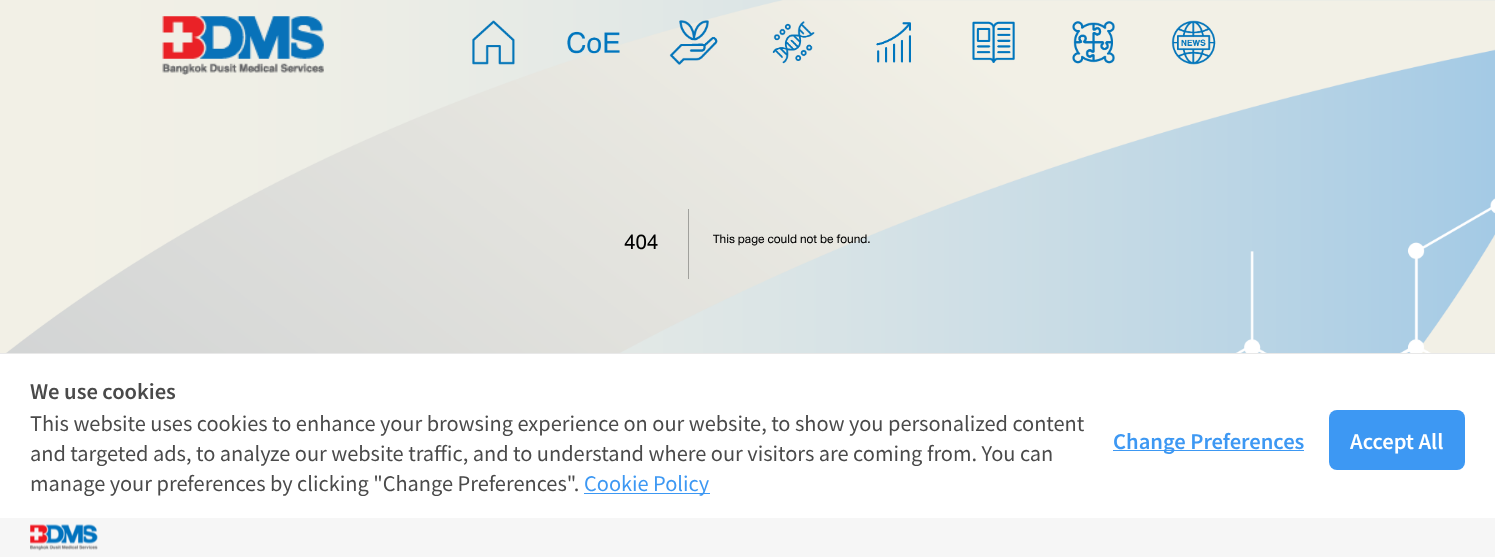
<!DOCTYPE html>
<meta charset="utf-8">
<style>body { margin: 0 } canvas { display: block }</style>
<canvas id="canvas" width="1495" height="557"></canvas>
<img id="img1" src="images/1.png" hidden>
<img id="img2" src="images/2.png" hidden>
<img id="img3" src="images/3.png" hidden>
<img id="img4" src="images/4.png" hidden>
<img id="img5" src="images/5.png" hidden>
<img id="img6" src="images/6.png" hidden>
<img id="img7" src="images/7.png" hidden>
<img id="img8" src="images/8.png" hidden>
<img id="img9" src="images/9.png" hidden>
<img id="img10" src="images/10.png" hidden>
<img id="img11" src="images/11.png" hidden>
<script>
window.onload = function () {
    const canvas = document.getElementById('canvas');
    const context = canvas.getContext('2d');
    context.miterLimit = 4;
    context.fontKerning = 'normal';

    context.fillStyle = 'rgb(255, 255, 255)';
    context.fillRect(0, 0, 1495, 557);
    context.drawImage(document.getElementById('img1'), 0, 0, 1495, 353);
    context.drawImage(document.getElementById('img2'), 162, 16, 162, 59);
    context.drawImage(document.getElementById('img3'), 472, 20, 43, 45);
    context.drawImage(document.getElementById('img4'), 567, 31, 53, 23);
    context.drawImage(document.getElementById('img5'), 669, 20, 49, 45);
    context.drawImage(document.getElementById('img6'), 772, 21, 43, 43);
    context.drawImage(document.getElementById('img7'), 876, 22, 35, 41);
    context.drawImage(document.getElementById('img8'), 972, 21, 43, 42);
    context.drawImage(document.getElementById('img9'), 1072, 21, 43, 43);
    context.drawImage(document.getElementById('img10'), 1171, 20, 45, 45);
    context.fillStyle = 'rgb(160, 160, 156)';
    context.fillRect(688, 209, 1, 70);
    context.fillStyle = 'rgb(232, 232, 232)';
    context.fillRect(0, 353, 1495, 1);
    context.fillStyle = 'rgb(61, 152, 243)';
    context.fillRect(584, 493, 126, 1);
    context.fillRect(1113, 450, 191, 1);
    context.beginPath();
    context.roundRect(1329, 410, 136, 60, 8);
    context.fill();
    context.fillStyle = 'rgb(246, 246, 246)';
    context.fillRect(0, 518, 1495, 39);
    context.drawImage(document.getElementById('img11'), 30, 524, 68, 27);
    context.font = '30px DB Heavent';
    context.fillStyle = 'rgb(0, 0, 0)';
    context.fillText('404', 624, 249);
    context.font = '17.5px DB Heavent';
    context.fillText('This page could not be found.', 713, 243);
    context.font = '600 20px Noto Sans JP';
    context.fillStyle = 'rgb(74, 74, 74)';
    context.fillText('We use cookies', 30, 399);
    context.font = '20px Noto Sans JP';
    context.fillText('This website uses cookies to enhance your browsing experience on our website, to show you personalized content', 30, 431);
    context.fillText('and targeted ads, to analyze our website traffic, and to understand where our visitors are coming from. You can', 30, 461);
    context.fillText('manage your preferences by clicking "Change Preferences".', 30, 491);
    context.fillStyle = 'rgb(61, 152, 243)';
    context.fillText('Cookie Policy', 584, 491);
    context.font = '600 20px Noto Sans JP';
    context.fillText('Change Preferences', 1113, 449);
    context.fillStyle = 'rgb(255, 255, 255)';
    context.fillText('Accept All', 1350, 449);
};
</script>
